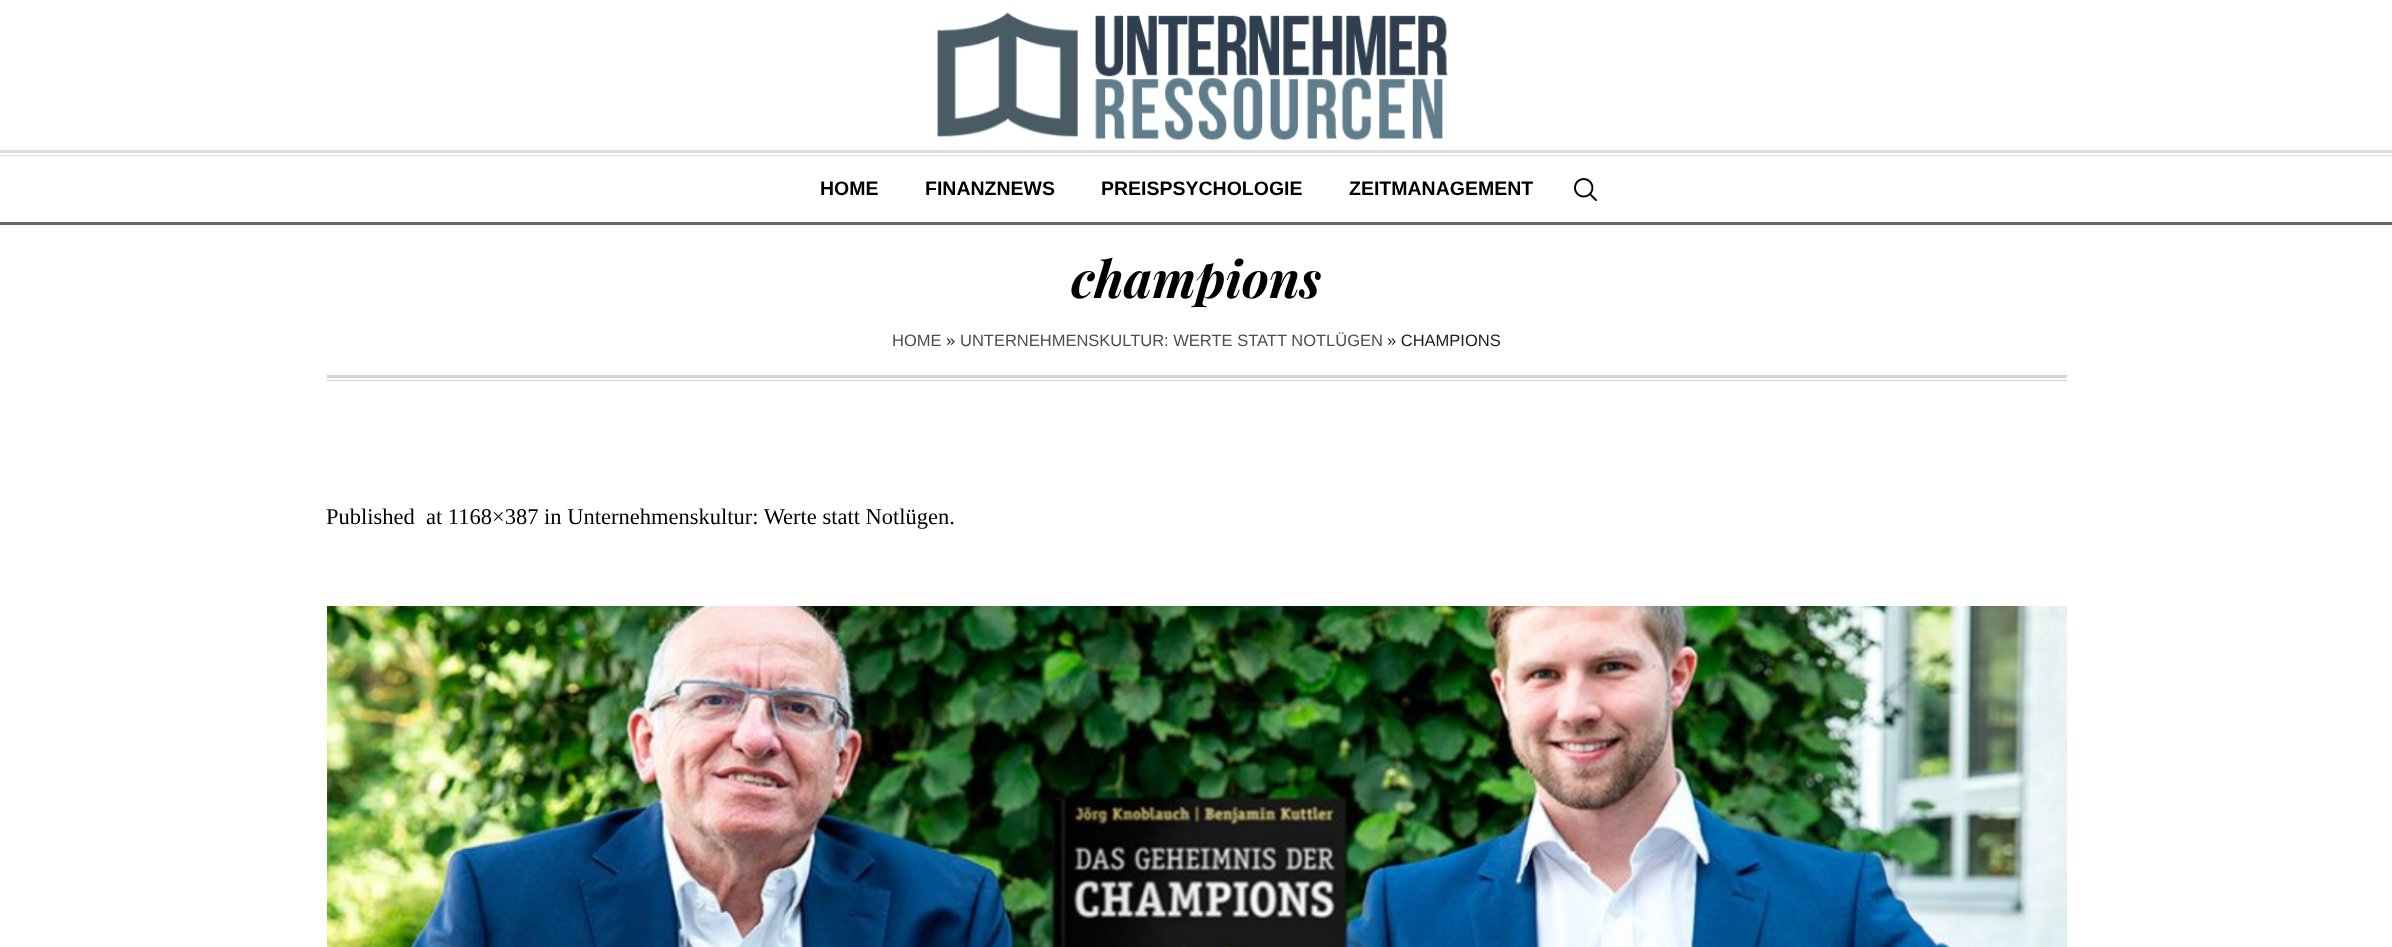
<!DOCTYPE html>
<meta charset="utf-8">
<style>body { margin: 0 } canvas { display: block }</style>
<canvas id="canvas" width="2392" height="947"></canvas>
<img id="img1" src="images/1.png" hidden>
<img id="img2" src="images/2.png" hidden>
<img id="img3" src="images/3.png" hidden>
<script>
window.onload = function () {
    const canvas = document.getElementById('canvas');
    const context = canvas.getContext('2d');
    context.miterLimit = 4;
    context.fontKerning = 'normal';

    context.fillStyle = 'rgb(255, 255, 255)';
    context.fillRect(0, 0, 2392, 947);
    context.drawImage(document.getElementById('img1'), 937, 12, 511, 129);
    context.fillStyle = 'rgb(223, 223, 223)';
    context.fillRect(0, 155, 2392, 1);
    context.fillRect(0, 150, 2392, 3);
    context.fillStyle = 'rgb(102, 102, 102)';
    context.fillRect(0, 222, 2392, 3);
    context.drawImage(document.getElementById('img2'), 1574, 178, 23, 23);
    context.fillStyle = 'rgb(212, 212, 212)';
    context.fillRect(327, 375, 1740, 3);
    context.fillRect(327, 380, 1740, 1);
    context.drawImage(document.getElementById('img3'), 327, 606, 1740, 341);
    context.font = 'bold 19.5px Liberation Sans';
    context.fillStyle = 'rgb(0, 0, 0)';
    context.fillText('HOME', 820, 195);
    context.fillText('FINANZNEWS', 925, 195);
    context.fillText('PREISPSYCHOLOGIE', 1101, 195);
    context.fillText('ZEITMANAGEMENT', 1349, 195);
    context.font = 'italic bold 51px Playfair Display';
    context.fillText('champions', 1071, 298);
    context.font = '16.5px Liberation Sans';
    context.fillStyle = 'rgb(77, 77, 77)';
    context.fillText('HOME', 892, 346);
    context.fillStyle = 'rgb(26, 26, 26)';
    context.fillText('»', 946, 346);
    context.fillStyle = 'rgb(77, 77, 77)';
    context.fillText('UNTERNEHMENSKULTUR: WERTE STATT NOTLÜGEN', 960, 346);
    context.fillStyle = 'rgb(26, 26, 26)';
    context.fillText('» CHAMPIONS', 1387, 346);
    context.font = '22.5px Liberation Serif';
    context.fillStyle = 'rgb(0, 0, 0)';
    context.fillText('Published', 326, 524);
    context.fillText('at 1168×387 in Unternehmenskultur: Werte statt Notlügen.', 426, 524);
};
</script>
